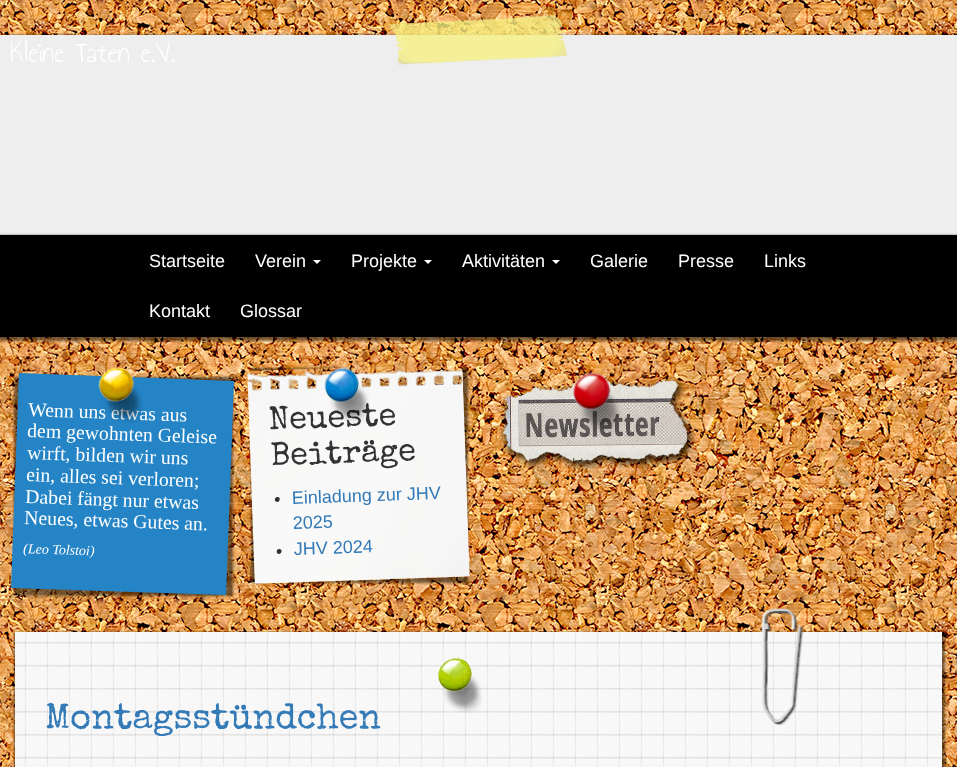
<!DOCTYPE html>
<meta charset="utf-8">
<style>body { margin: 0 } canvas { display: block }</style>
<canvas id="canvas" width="957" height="767"></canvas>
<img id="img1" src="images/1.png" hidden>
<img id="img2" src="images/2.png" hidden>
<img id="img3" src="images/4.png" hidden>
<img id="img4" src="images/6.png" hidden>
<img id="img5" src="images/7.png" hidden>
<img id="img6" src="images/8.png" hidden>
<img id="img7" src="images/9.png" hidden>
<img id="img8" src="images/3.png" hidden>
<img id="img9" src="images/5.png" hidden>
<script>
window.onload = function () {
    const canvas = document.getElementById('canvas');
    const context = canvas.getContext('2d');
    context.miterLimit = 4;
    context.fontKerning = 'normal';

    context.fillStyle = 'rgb(255, 255, 255)';
    context.fillRect(0, 0, 957, 767);
    context.drawImage(document.getElementById('img1'), 0, 0, 957, 767);
    context.fillStyle = 'rgba(0, 0, 0, 0.5)';
    context.filter = 'blur(1px)';
    context.beginPath();
    context.rect(-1, 35, 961, 204);
    context.fill();
    context.filter = 'none';
    context.fillStyle = 'rgb(238, 238, 238)';
    context.fillRect(0, 35, 957, 200);
    context.drawImage(document.getElementById('img2'), 389, 15, 179, 50);
    context.fillStyle = 'rgba(0, 0, 0, 0.5)';
    context.filter = 'blur(1px)';
    context.beginPath();
    context.rect(-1, 235, 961, 106);
    context.fill();
    context.filter = 'none';
    context.fillStyle = 'rgb(0, 0, 0)';
    context.fillRect(0, 235, 957, 102);
    context.fillStyle = 'rgb(255, 255, 255)';
    context.beginPath();
    context.moveTo(313, 260);
    context.lineTo(321, 260);
    context.lineTo(317, 264);
    context.closePath();
    context.fill();
    context.beginPath();
    context.moveTo(424, 260);
    context.lineTo(432, 260);
    context.lineTo(428, 264);
    context.closePath();
    context.fill();
    context.beginPath();
    context.moveTo(552, 260);
    context.lineTo(560, 260);
    context.lineTo(556, 264);
    context.closePath();
    context.fill();
    context.fillStyle = 'rgba(0, 0, 0, 0.5)';
    context.filter = 'blur(1px)';
    context.beginPath();
    context.rect(14, 377, 219, 219);
    context.fill();
    context.filter = 'none';
    context.fillStyle = 'rgb(36, 132, 198)';
    context.beginPath();
    context.moveTo(19, 373);
    context.lineTo(234, 381);
    context.lineTo(226, 595);
    context.lineTo(11, 588);
    context.closePath();
    context.fill();
    context.save();
    context.beginPath();
    context.moveTo(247, 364);
    context.lineTo(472, 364);
    context.lineTo(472, 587);
    context.lineTo(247, 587);
    context.closePath();
    context.moveTo(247.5, 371);
    context.lineTo(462, 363.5);
    context.lineTo(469.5, 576.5);
    context.lineTo(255, 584);
    context.closePath();
    context.clip('evenodd');
    context.fillStyle = 'rgba(0, 0, 0, 0.5)';
    context.filter = 'blur(1px)';
    context.beginPath();
    context.rect(251, 368, 217, 215);
    context.fill();
    context.filter = 'none';
    context.restore();
    context.drawImage(document.getElementById('img3'), 247, 365, 223, 219);
    context.fillStyle = 'rgb(51, 51, 51)';
    context.beginPath();
    context.moveTo(277.5, 497);
    context.bezierCurveTo(280.5, 496.5, 280.5, 501.5, 277.5, 502);
    context.bezierCurveTo(274, 502, 274, 497, 277.5, 497);
    context.closePath();
    context.fill();
    context.beginPath();
    context.moveTo(279, 549);
    context.bezierCurveTo(282.5, 548.5, 282.5, 553.5, 279, 554);
    context.bezierCurveTo(276, 554, 276, 549, 279, 549);
    context.closePath();
    context.fill();
    context.drawImage(document.getElementById('img4'), 499, 372, 197, 99);
    context.fillStyle = 'rgba(0, 0, 0, 0.5)';
    context.filter = 'blur(1px)';
    context.beginPath();
    context.rect(14, 632, 931, 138);
    context.fill();
    context.filter = 'none';
    context.drawImage(document.getElementById('img5'), 15, 632, 927, 135);
    context.drawImage(document.getElementById('img6'), 437, 657, 45, 56);
    context.drawImage(document.getElementById('img7'), 761, 608, 43, 118);
    context.font = '30px Annie Use Your Telescope';
    context.fillStyle = 'rgb(255, 255, 255)';
    context.fillText('Kleine Taten e.V.', 10, 62);
    context.font = '18px Liberation Sans';
    context.fillText('Startseite', 149, 267);
    context.fillText('Verein', 255, 267);
    context.fillText('Projekte', 351, 267);
    context.fillText('Aktivitäten', 462, 267);
    context.fillText('Galerie', 590, 267);
    context.fillText('Presse', 678, 267);
    context.fillText('Links', 764, 267);
    context.fillText('Kontakt', 149, 317);
    context.fillText('Glossar', 240, 317);
    context.font = '19.75px Liberation Serif';
    context.save();
    context.translate(28, 416);
    context.rotate(2 * Math.PI / 180);
    context.fillText('Wenn uns etwas aus', 0, 0);
    context.restore();
    context.drawImage(document.getElementById('img8'), 98, 366, 45, 57);
    context.save();
    context.translate(27, 437);
    context.rotate(2 * Math.PI / 180);
    context.fillText('dem gewohnten Geleise', 0, 0);
    context.restore();
    context.save();
    context.translate(27, 459);
    context.rotate(2 * Math.PI / 180);
    context.fillText('wirft, bilden wir uns', 0, 0);
    context.restore();
    context.save();
    context.translate(26, 481);
    context.rotate(2 * Math.PI / 180);
    context.fillText('ein, alles sei verloren;', 0, 0);
    context.restore();
    context.save();
    context.translate(25, 503);
    context.rotate(2 * Math.PI / 180);
    context.fillText('Dabei fängt nur etwas', 0, 0);
    context.restore();
    context.save();
    context.translate(24, 524);
    context.rotate(2 * Math.PI / 180);
    context.fillText('Neues, etwas Gutes an.', 0, 0);
    context.restore();
    context.font = 'italic 14px Liberation Serif';
    context.save();
    context.translate(23, 553);
    context.rotate(2 * Math.PI / 180);
    context.fillText('(Leo Tolstoi)', 0, 0);
    context.restore();
    context.font = '32.5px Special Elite';
    context.fillStyle = 'rgb(51, 51, 51)';
    context.save();
    context.translate(269, 429);
    context.rotate(-2 * Math.PI / 180);
    context.fillText('Neueste', 0, 0);
    context.restore();
    context.drawImage(document.getElementById('img9'), 324, 367, 46, 56);
    context.save();
    context.translate(271, 465);
    context.rotate(-2 * Math.PI / 180);
    context.fillText('Beiträge', 0, 0);
    context.restore();
    context.font = '18px Liberation Sans';
    context.fillStyle = 'rgb(51, 122, 183)';
    context.save();
    context.translate(292, 504);
    context.rotate(-2 * Math.PI / 180);
    context.fillText('Einladung zur JHV', 0, 0);
    context.restore();
    context.save();
    context.translate(293, 529);
    context.rotate(-2 * Math.PI / 180);
    context.fillText('2025', 0, 0);
    context.restore();
    context.save();
    context.translate(294, 555);
    context.rotate(-2 * Math.PI / 180);
    context.fillText('JHV 2024', 0, 0);
    context.restore();
    context.font = '36px Special Elite';
    context.fillText('Montagsstündchen', 45, 728);
};
</script>
